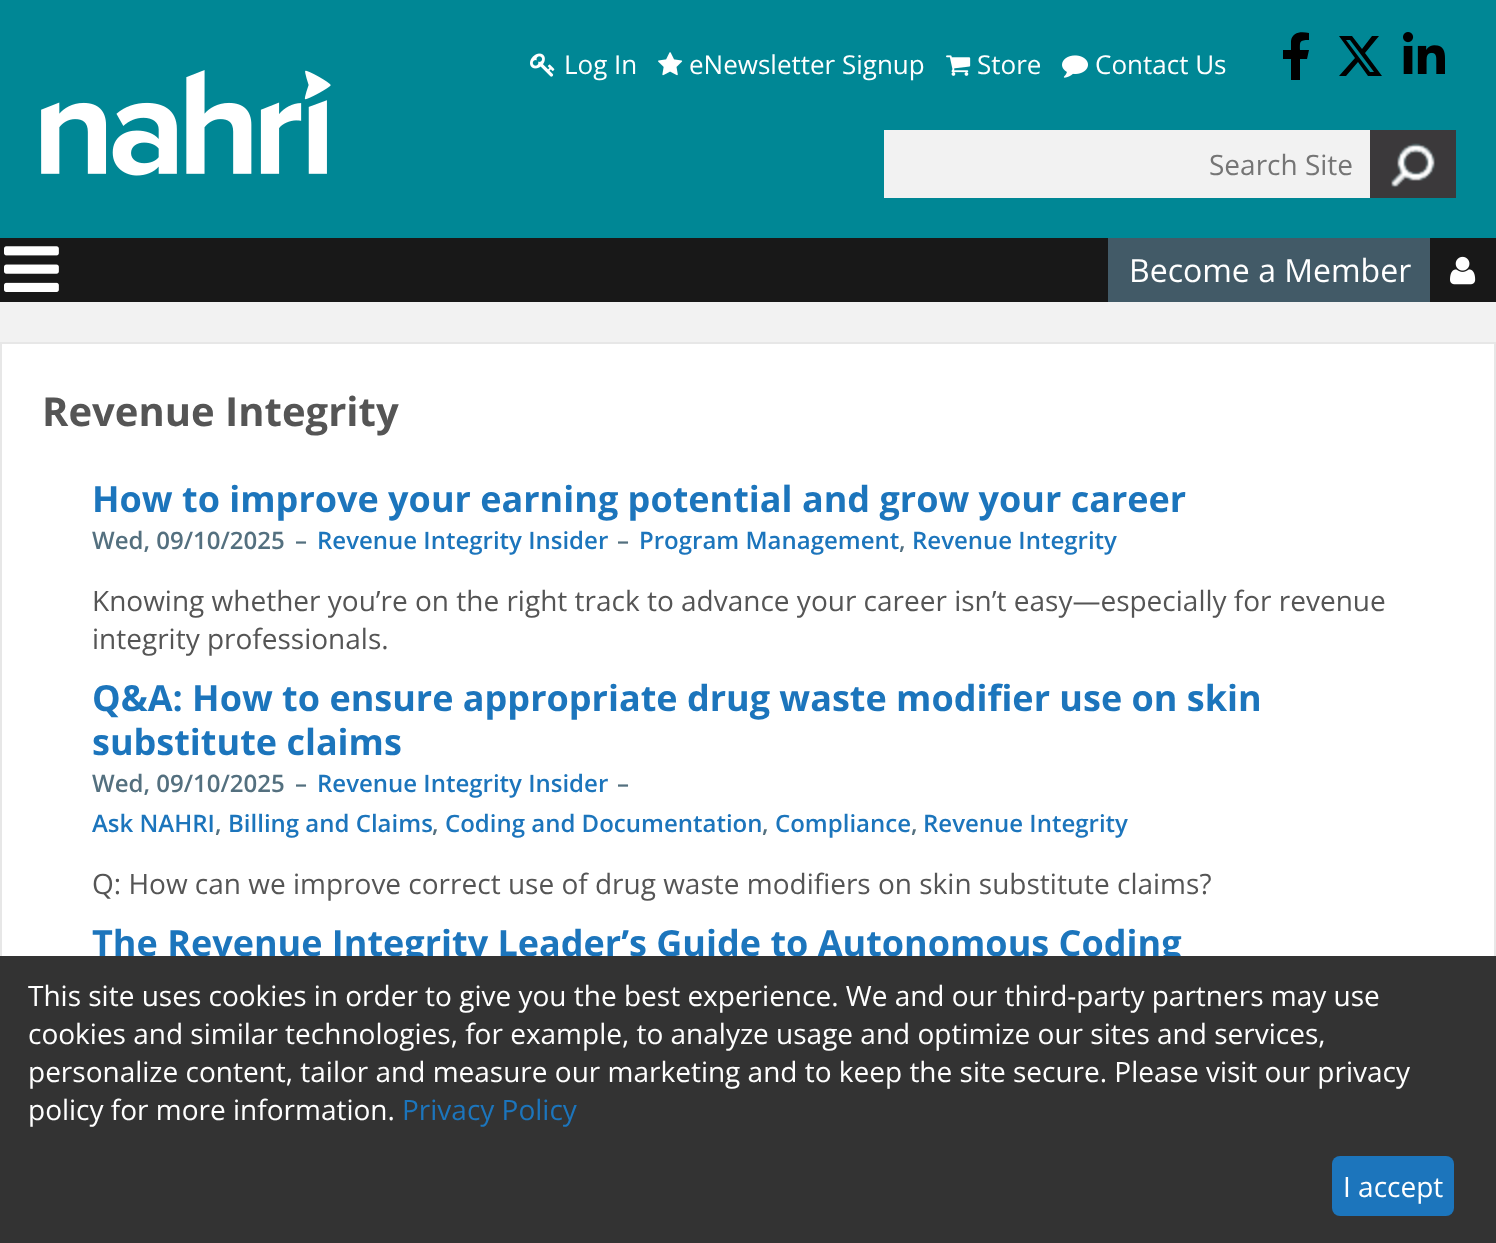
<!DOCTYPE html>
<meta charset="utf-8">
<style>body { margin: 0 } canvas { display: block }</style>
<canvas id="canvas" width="1496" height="1243"></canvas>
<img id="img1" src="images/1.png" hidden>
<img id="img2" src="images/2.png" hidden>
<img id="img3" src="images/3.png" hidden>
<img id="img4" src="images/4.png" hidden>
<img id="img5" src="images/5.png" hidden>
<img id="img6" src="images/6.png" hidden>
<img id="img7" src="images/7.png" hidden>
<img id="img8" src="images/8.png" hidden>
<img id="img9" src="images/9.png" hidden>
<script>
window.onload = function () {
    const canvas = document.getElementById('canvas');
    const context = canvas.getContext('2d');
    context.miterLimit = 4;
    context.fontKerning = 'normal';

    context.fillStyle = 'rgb(242, 242, 242)';
    context.fillRect(0, 0, 1496, 1243);
    context.fillStyle = 'rgb(0, 135, 149)';
    context.fillRect(0, 0, 1496, 238);
    context.drawImage(document.getElementById('img1'), 41, 70, 290, 106);
    context.drawImage(document.getElementById('img2'), 530, 53, 25, 24);
    context.drawImage(document.getElementById('img3'), 658, 52, 25, 24);
    context.drawImage(document.getElementById('img4'), 946, 55, 25, 21);
    context.drawImage(document.getElementById('img5'), 1062, 55, 26, 23);
    context.fillStyle = 'rgb(0, 0, 0)';
    context.beginPath();
    context.moveTo(1307, 59);
    context.lineTo(1309, 50);
    context.lineTo(1300, 50);
    context.bezierCurveTo(1300, 42, 1299, 40, 1309, 40);
    context.lineTo(1309, 33);
    context.bezierCurveTo(1301, 31, 1292, 32, 1291, 41);
    context.lineTo(1291, 50);
    context.lineTo(1283, 50);
    context.lineTo(1283, 59);
    context.lineTo(1291, 59);
    context.lineTo(1291, 80);
    context.lineTo(1300, 80);
    context.lineTo(1300, 59);
    context.closePath();
    context.fill();
    context.beginPath();
    context.moveTo(1372, 36);
    context.lineTo(1379, 36);
    context.lineTo(1365, 53);
    context.lineTo(1382, 76);
    context.lineTo(1368, 76);
    context.lineTo(1358, 62);
    context.lineTo(1346, 76);
    context.lineTo(1339, 76);
    context.lineTo(1355, 58);
    context.lineTo(1339, 36);
    context.lineTo(1352, 36);
    context.lineTo(1362, 49);
    context.closePath();
    context.moveTo(1370, 72);
    context.lineTo(1374, 72);
    context.lineTo(1350, 40);
    context.lineTo(1346, 40);
    context.closePath();
    context.fill();
    context.drawImage(document.getElementById('img6'), 1403, 32, 42, 42);
    context.fillStyle = 'rgb(242, 242, 242)';
    context.fillRect(884, 130, 486, 68);
    context.drawImage(document.getElementById('img7'), 1370, 130, 86, 68);
    context.fillStyle = 'rgb(24, 24, 24)';
    context.fillRect(0, 238, 1496, 64);
    context.drawImage(document.getElementById('img8'), 4, 246, 55, 46);
    context.fillStyle = 'rgb(66, 90, 103)';
    context.fillRect(1108, 238, 322, 64);
    context.drawImage(document.getElementById('img9'), 1450, 256, 26, 29);
    context.fillStyle = 'rgb(255, 255, 255)';
    context.fillRect(2, 344, 1492, 612);
    context.strokeStyle = 'rgb(231, 231, 231)';
    context.lineWidth = 2;
    context.strokeRect(1, 343, 1494, 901);
    context.font = '26px Open Sans';
    context.fillText('Log In', 564, 74);
    context.fillText('eNewsletter Signup', 689, 74);
    context.fillText('Store', 977, 74);
    context.fillText('Contact Us', 1095, 74);
    context.font = '28px Open Sans';
    context.fillStyle = 'rgb(117, 117, 117)';
    context.fillText('Search Site', 1209, 175);
    context.font = '32px Open Sans';
    context.fillStyle = 'rgb(255, 255, 255)';
    context.fillText('Become a Member', 1129, 282);
    context.font = 'bold 40px Open Sans';
    context.fillStyle = 'rgb(85, 85, 85)';
    context.fillText('Revenue Integrity', 42, 426);
    context.font = 'bold 36px Open Sans';
    context.fillStyle = 'rgb(28, 117, 188)';
    context.fillText('How to improve your earning potential and grow your career', 92, 512);
    context.font = '600 24px Open Sans';
    context.fillStyle = 'rgb(84, 112, 127)';
    context.fillText('Wed, 09/10/2025', 92, 549);
    context.fillText('–', 295, 549);
    context.fillStyle = 'rgb(28, 117, 188)';
    context.fillText('Revenue Integrity Insider', 317, 549);
    context.fillStyle = 'rgb(84, 112, 127)';
    context.fillText('–', 617, 549);
    context.fillStyle = 'rgb(28, 117, 188)';
    context.fillText('Program Management', 639, 549);
    context.fillStyle = 'rgb(84, 112, 127)';
    context.fillText(',', 899, 549);
    context.fillStyle = 'rgb(28, 117, 188)';
    context.fillText('Revenue Integrity', 912, 549);
    context.font = '28px Open Sans';
    context.fillStyle = 'rgb(85, 85, 85)';
    context.fillText('Knowing whether you’re on the right track to advance your career isn’t easy—especially for revenue', 92, 611);
    context.fillText('integrity professionals.', 92, 649);
    context.font = 'bold 36px Open Sans';
    context.fillStyle = 'rgb(28, 117, 188)';
    context.fillText('Q&A: How to ensure appropriate drug waste modifier use on skin', 92, 711);
    context.fillText('substitute claims', 92, 755);
    context.font = '600 24px Open Sans';
    context.fillStyle = 'rgb(84, 112, 127)';
    context.fillText('Wed, 09/10/2025', 92, 792);
    context.fillText('–', 295, 792);
    context.fillStyle = 'rgb(28, 117, 188)';
    context.fillText('Revenue Integrity Insider', 317, 792);
    context.fillStyle = 'rgb(84, 112, 127)';
    context.fillText('–', 617, 792);
    context.fillStyle = 'rgb(28, 117, 188)';
    context.fillText('Ask NAHRI', 92, 832);
    context.fillStyle = 'rgb(84, 112, 127)';
    context.fillText(',', 215, 832);
    context.fillStyle = 'rgb(28, 117, 188)';
    context.fillText('Billing and Claims', 228, 832);
    context.fillStyle = 'rgb(84, 112, 127)';
    context.fillText(',', 432, 832);
    context.fillStyle = 'rgb(28, 117, 188)';
    context.fillText('Coding and Documentation', 445, 832);
    context.fillStyle = 'rgb(84, 112, 127)';
    context.fillText(',', 762, 832);
    context.fillStyle = 'rgb(28, 117, 188)';
    context.fillText('Compliance', 775, 832);
    context.fillStyle = 'rgb(84, 112, 127)';
    context.fillText(',', 911, 832);
    context.fillStyle = 'rgb(28, 117, 188)';
    context.fillText('Revenue Integrity', 923, 832);
    context.font = '28px Open Sans';
    context.fillStyle = 'rgb(85, 85, 85)';
    context.fillText('Q: How can we improve correct use of drug waste modifiers on skin substitute claims?', 92, 894);
    context.font = 'bold 36px Open Sans';
    context.fillStyle = 'rgb(28, 117, 188)';
    context.fillText('The Revenue Integrity Leader’s Guide to Autonomous Coding', 92, 956);
    context.fillStyle = 'rgb(51, 51, 51)';
    context.fillRect(0, 956, 1496, 287);
    context.font = '28px Open Sans';
    context.fillStyle = 'rgb(255, 255, 255)';
    context.fillText('This site uses cookies in order to give you the best experience. We and our third-party partners may use', 28, 1006);
    context.fillText('cookies and similar technologies, for example, to analyze usage and optimize our sites and services,', 28, 1044);
    context.fillText('personalize content, tailor and measure our marketing and to keep the site secure. Please visit our privacy', 28, 1082);
    context.fillText('policy for more information.', 28, 1120);
    context.fillStyle = 'rgb(28, 117, 188)';
    context.fillText('Privacy Policy', 402, 1120);
    context.beginPath();
    context.roundRect(1332, 1156, 122, 60, 8);
    context.fill();
    context.fillStyle = 'rgb(255, 255, 255)';
    context.fillText('I accept', 1343, 1197);
};
</script>
